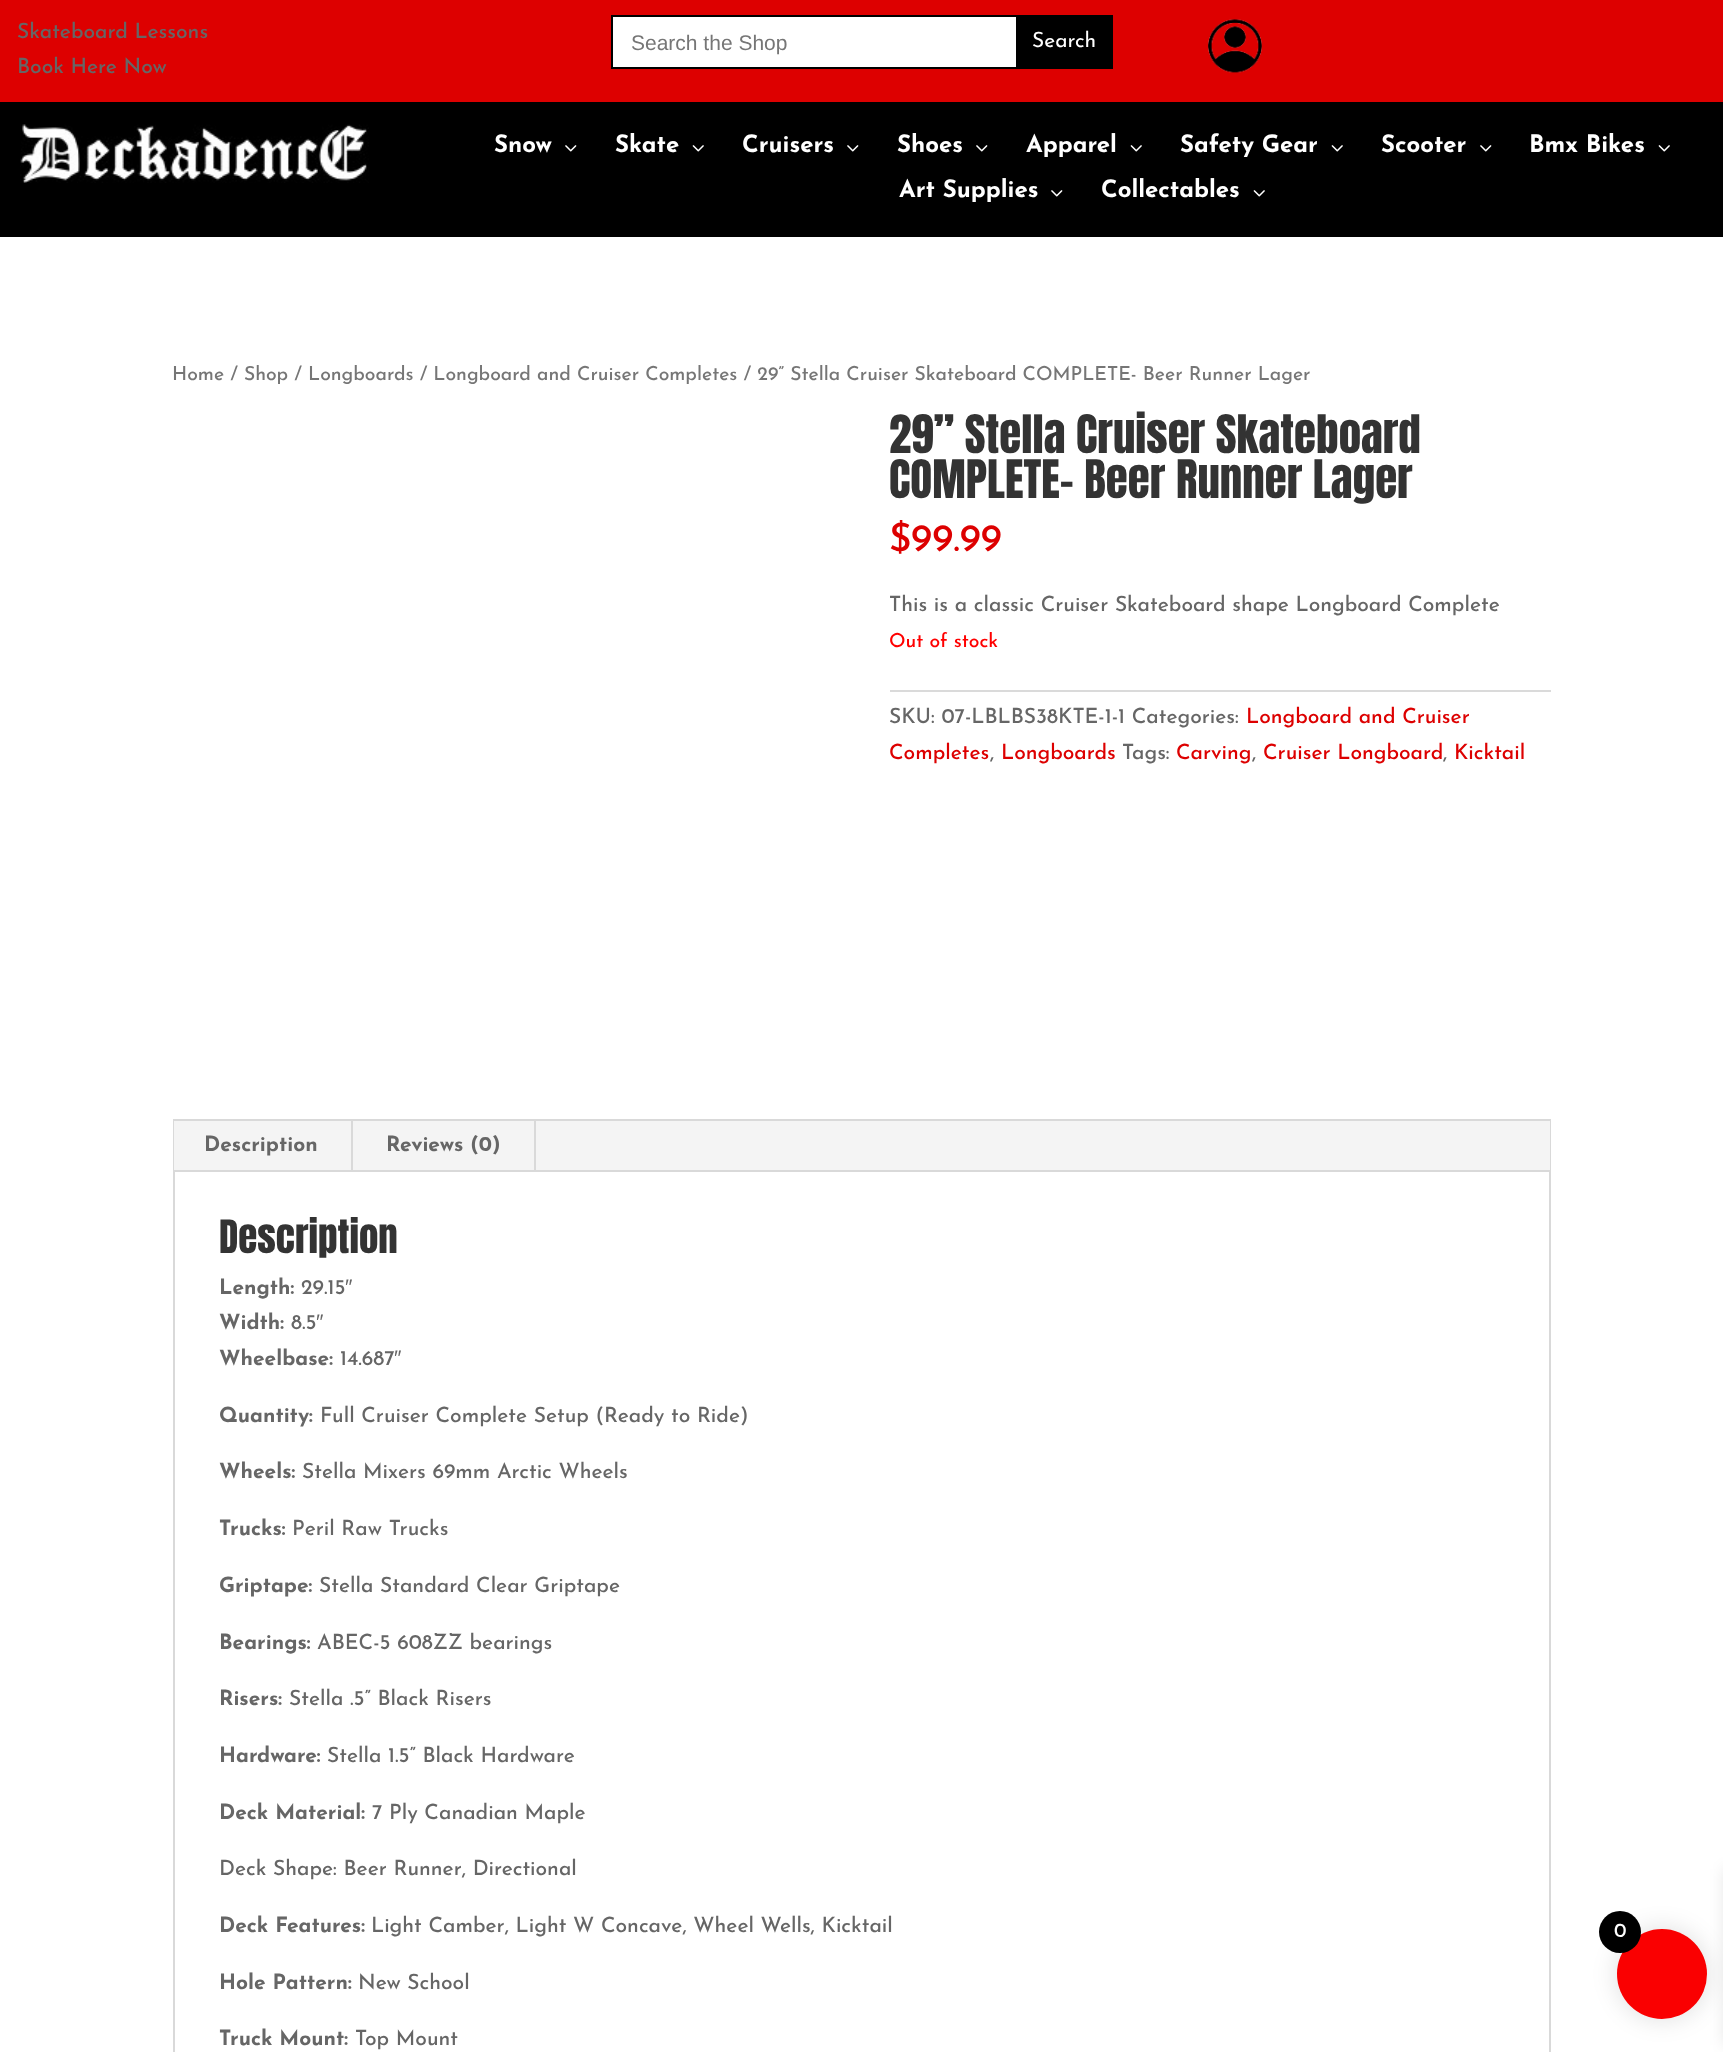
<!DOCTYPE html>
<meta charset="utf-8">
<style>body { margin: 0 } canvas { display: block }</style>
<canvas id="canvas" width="1723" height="2052"></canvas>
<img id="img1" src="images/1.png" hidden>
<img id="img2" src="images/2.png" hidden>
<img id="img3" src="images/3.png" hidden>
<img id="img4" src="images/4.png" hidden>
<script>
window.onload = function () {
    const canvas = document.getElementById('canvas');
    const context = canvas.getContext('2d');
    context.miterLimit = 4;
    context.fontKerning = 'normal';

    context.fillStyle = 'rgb(255, 255, 255)';
    context.fillRect(0, 0, 1723, 2052);
    context.fillStyle = 'rgb(221, 0, 0)';
    context.fillRect(0, 0, 1723, 102);
    context.fillStyle = 'rgb(255, 255, 255)';
    context.fillRect(613, 17, 403, 50);
    context.strokeStyle = 'rgb(0, 0, 0)';
    context.lineWidth = 2;
    context.strokeRect(612, 16, 500, 52);
    context.fillStyle = 'rgb(0, 0, 0)';
    context.fillRect(1016, 17, 95, 50);
    context.drawImage(document.getElementById('img1'), 1208, 19, 54, 54);
    context.fillRect(0, 102, 1723, 135);
    context.drawImage(document.getElementById('img2'), 20, 124, 349, 59);
    context.drawImage(document.getElementById('img3'), 565, 145, 12, 7);
    context.drawImage(document.getElementById('img4'), 692, 145, 12, 7);
    context.drawImage(document.getElementById('img3'), 847, 145, 12, 7);
    context.drawImage(document.getElementById('img3'), 976, 145, 12, 7);
    context.drawImage(document.getElementById('img4'), 1130, 145, 12, 7);
    context.drawImage(document.getElementById('img4'), 1331, 145, 12, 7);
    context.drawImage(document.getElementById('img3'), 1480, 145, 12, 7);
    context.drawImage(document.getElementById('img4'), 1658, 145, 12, 7);
    context.drawImage(document.getElementById('img3'), 1051, 190, 12, 7);
    context.drawImage(document.getElementById('img4'), 1253, 190, 12, 7);
    context.fillStyle = 'rgb(218, 218, 218)';
    context.fillRect(890, 690, 661, 2);
    context.strokeStyle = 'rgb(217, 217, 217)';
    context.strokeRect(174, 1120, 1376, 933);
    context.fillStyle = 'rgb(244, 244, 244)';
    context.fillRect(174, 1121, 1376, 49);
    context.fillStyle = 'rgb(217, 217, 217)';
    context.fillRect(351, 1121, 2, 51);
    context.fillRect(534, 1121, 2, 51);
    context.fillRect(174, 1170, 1376, 2);
    context.fillStyle = 'rgba(0, 0, 0, 0.1)';
    context.filter = 'blur(11px)';
    context.beginPath();
    context.roundRect(1614, 1926, 96, 96, 48);
    context.fill();
    context.filter = 'none';
    context.filter = 'blur(7.5px)';
    context.beginPath();
    context.rect(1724, 1869, 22, 176);
    context.fill();
    context.filter = 'none';
    context.fillStyle = 'rgb(250, 0, 1)';
    context.beginPath();
    context.arc(1662, 1974, 45, 0, 2 * Math.PI);
    context.fill();
    context.fillStyle = 'rgb(0, 0, 0)';
    context.beginPath();
    context.arc(1620, 1932, 21, 0, 2 * Math.PI);
    context.fill();
    context.font = '500 21px Josefin Sans';
    context.fillStyle = 'rgb(102, 102, 102)';
    context.fillText('Skateboard Lessons', 17, 38);
    context.fillText('Book Here Now', 17, 73);
    context.font = '21px Liberation Sans';
    context.fillStyle = 'rgb(118, 118, 118)';
    context.fillText('Search the Shop', 631, 50);
    context.font = '21px Josefin Sans';
    context.fillStyle = 'rgb(255, 255, 255)';
    context.fillText('Search', 1032, 47);
    context.font = 'bold 24px Josefin Sans';
    context.fillText('Snow', 494, 152);
    context.fillText('Skate', 615, 152);
    context.fillText('Cruisers', 742, 152);
    context.fillText('Shoes', 897, 152);
    context.fillText('Apparel', 1026, 152);
    context.fillText('Safety Gear', 1180, 152);
    context.fillText('Scooter', 1381, 152);
    context.fillText('Bmx Bikes', 1529, 152);
    context.fillText('Art Supplies', 899, 197);
    context.fillText('Collectables', 1101, 197);
    context.font = '500 19.32px Josefin Sans';
    context.fillStyle = 'rgb(118, 118, 118)';
    context.fillText('Home / Shop / Longboards / Longboard and Cruiser Completes / 29” Stella Cruiser Skateboard COMPLETE- Beer Runner Lager', 172, 380);
    context.font = '45px Anton';
    context.fillStyle = 'rgb(51, 51, 51)';
    context.fillText('29” Stella Cruiser Skateboard', 889, 453);
    context.fillText('COMPLETE- Beer Runner Lager', 889, 498);
    context.font = '500 39px Josefin Sans';
    context.fillStyle = 'rgb(221, 0, 0)';
    context.fillText('$99.99', 889, 551);
    context.font = '500 21px Josefin Sans';
    context.fillStyle = 'rgb(102, 102, 102)';
    context.fillText('This is a classic Cruiser Skateboard shape Longboard Complete', 889, 611);
    context.font = '500 19.32px Josefin Sans';
    context.fillStyle = 'rgb(255, 0, 0)';
    context.fillText('Out of stock', 889, 647);
    context.font = '500 21px Josefin Sans';
    context.fillStyle = 'rgb(102, 102, 102)';
    context.fillText('SKU: 07-LBLBS38KTE-1-1 Categories:', 889, 723);
    context.fillStyle = 'rgb(221, 0, 0)';
    context.fillText('Longboard and Cruiser', 1246, 723);
    context.fillText('Completes', 889, 759);
    context.fillStyle = 'rgb(102, 102, 102)';
    context.fillText(',', 990, 759);
    context.fillStyle = 'rgb(221, 0, 0)';
    context.fillText('Longboards', 1001, 759);
    context.fillStyle = 'rgb(102, 102, 102)';
    context.fillText('Tags:', 1122, 759);
    context.fillStyle = 'rgb(221, 0, 0)';
    context.fillText('Carving', 1176, 759);
    context.fillStyle = 'rgb(102, 102, 102)';
    context.fillText(',', 1252, 759);
    context.fillStyle = 'rgb(221, 0, 0)';
    context.fillText('Cruiser Longboard', 1263, 759);
    context.fillStyle = 'rgb(102, 102, 102)';
    context.fillText(',', 1443, 759);
    context.fillStyle = 'rgb(221, 0, 0)';
    context.fillText('Kicktail', 1454, 759);
    context.font = 'bold 21px Josefin Sans';
    context.fillStyle = 'rgb(102, 102, 102)';
    context.fillText('Description', 204, 1151);
    context.fillText('Reviews (0)', 386, 1151);
    context.font = '39px Anton';
    context.fillStyle = 'rgb(51, 51, 51)';
    context.fillText('Description', 219, 1253);
    context.font = 'bold 21px Josefin Sans';
    context.fillStyle = 'rgb(102, 102, 102)';
    context.fillText('Length:', 219, 1294);
    context.font = '500 21px Josefin Sans';
    context.fillText('29.15', 301, 1294);
    context.font = '21px Liberation Sans';
    context.fillText('″', 345, 1294);
    context.font = 'bold 21px Josefin Sans';
    context.fillText('Width:', 219, 1329);
    context.font = '500 21px Josefin Sans';
    context.fillText('8.5', 291, 1329);
    context.font = '21px Liberation Sans';
    context.fillText('″', 316, 1329);
    context.font = 'bold 21px Josefin Sans';
    context.fillText('Wheelbase:', 219, 1365);
    context.font = '500 21px Josefin Sans';
    context.fillText('14.687', 340, 1365);
    context.font = '21px Liberation Sans';
    context.fillText('″', 394, 1365);
    context.font = 'bold 21px Josefin Sans';
    context.fillText('Quantity:', 219, 1422);
    context.font = '500 21px Josefin Sans';
    context.fillText('Full Cruiser Complete Setup (Ready to Ride)', 320, 1422);
    context.font = 'bold 21px Josefin Sans';
    context.fillText('Wheels:', 219, 1478);
    context.font = '500 21px Josefin Sans';
    context.fillText('Stella Mixers 69mm Arctic Wheels', 302, 1478);
    context.font = 'bold 21px Josefin Sans';
    context.fillText('Trucks:', 219, 1535);
    context.font = '500 21px Josefin Sans';
    context.fillText('Peril Raw Trucks', 292, 1535);
    context.font = 'bold 21px Josefin Sans';
    context.fillText('Griptape:', 219, 1592);
    context.font = '500 21px Josefin Sans';
    context.fillText('Stella Standard Clear Griptape', 319, 1592);
    context.font = 'bold 21px Josefin Sans';
    context.fillText('Bearings:', 219, 1649);
    context.font = '500 21px Josefin Sans';
    context.fillText('ABEC-5 608ZZ bearings', 317, 1649);
    context.font = 'bold 21px Josefin Sans';
    context.fillText('Risers:', 219, 1705);
    context.font = '500 21px Josefin Sans';
    context.fillText('Stella .5” Black Risers', 289, 1705);
    context.font = 'bold 21px Josefin Sans';
    context.fillText('Hardware:', 219, 1762);
    context.font = '500 21px Josefin Sans';
    context.fillText('Stella 1.5” Black Hardware', 327, 1762);
    context.font = 'bold 21px Josefin Sans';
    context.fillText('Deck Material:', 219, 1819);
    context.font = '500 21px Josefin Sans';
    context.fillText('7 Ply Canadian Maple', 372, 1819);
    context.fillText('Deck Shape: Beer Runner, Directional', 219, 1875);
    context.font = 'bold 21px Josefin Sans';
    context.fillText('Deck Features:', 219, 1932);
    context.font = '500 21px Josefin Sans';
    context.fillText('Light Camber, Light W Concave, Wheel Wells, Kicktail', 371, 1932);
    context.font = 'bold 21px Josefin Sans';
    context.fillText('Hole Pattern:', 219, 1989);
    context.font = '500 21px Josefin Sans';
    context.fillText('New School', 358, 1989);
    context.font = 'bold 21px Josefin Sans';
    context.fillText('Truck Mount:', 219, 2045);
    context.font = '500 21px Josefin Sans';
    context.fillText('Top Mount', 355, 2045);
    context.font = '500 20px Josefin Sans';
    context.fillStyle = 'rgb(255, 255, 255)';
    context.fillText('0', 1614, 1937);
};
</script>
